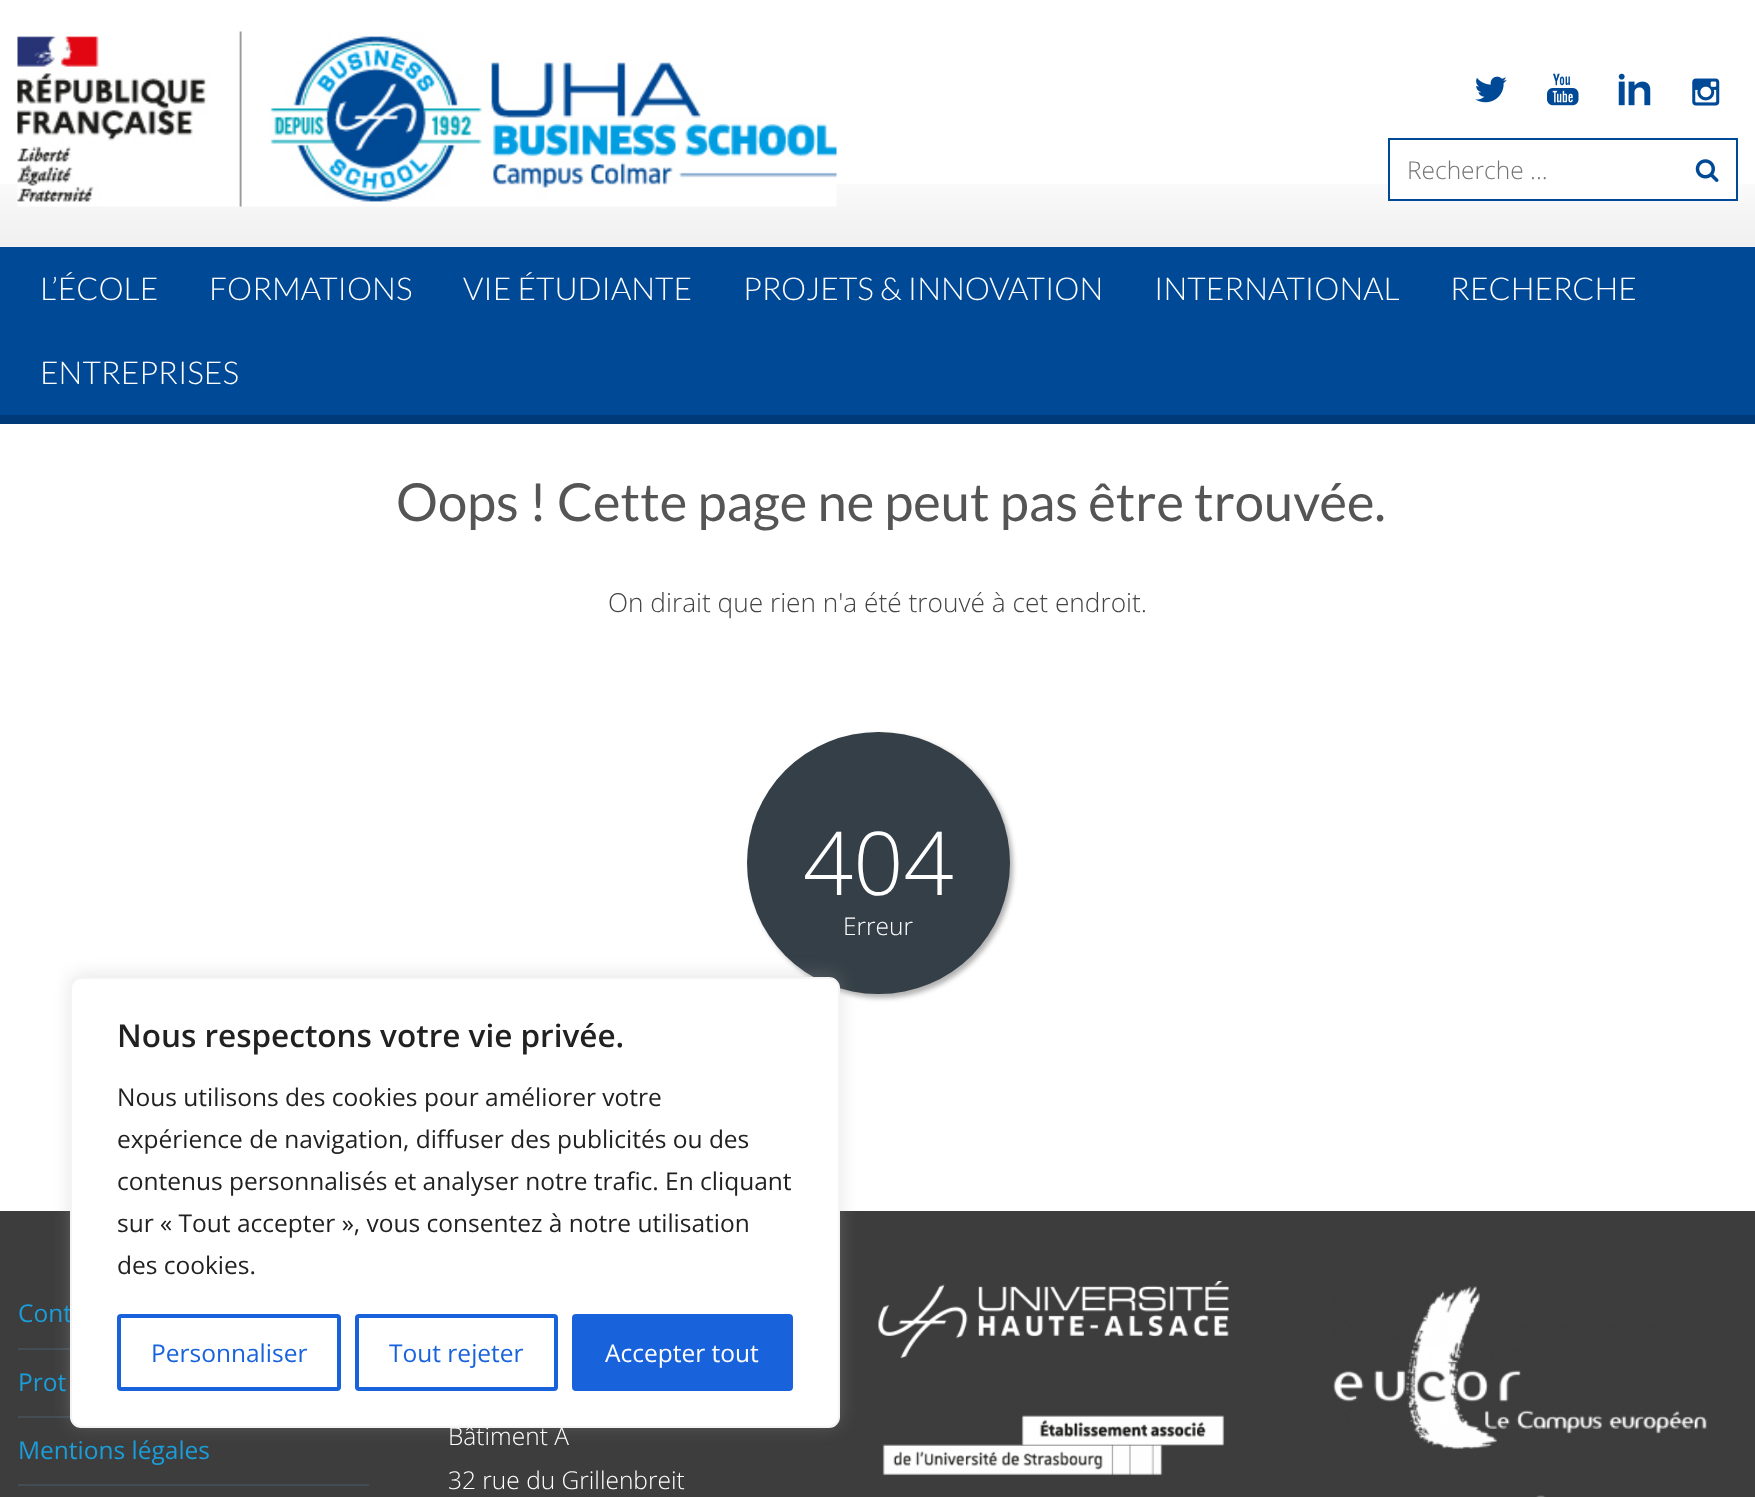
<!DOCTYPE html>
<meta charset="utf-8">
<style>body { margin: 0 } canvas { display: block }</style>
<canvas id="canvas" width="1755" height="1497"></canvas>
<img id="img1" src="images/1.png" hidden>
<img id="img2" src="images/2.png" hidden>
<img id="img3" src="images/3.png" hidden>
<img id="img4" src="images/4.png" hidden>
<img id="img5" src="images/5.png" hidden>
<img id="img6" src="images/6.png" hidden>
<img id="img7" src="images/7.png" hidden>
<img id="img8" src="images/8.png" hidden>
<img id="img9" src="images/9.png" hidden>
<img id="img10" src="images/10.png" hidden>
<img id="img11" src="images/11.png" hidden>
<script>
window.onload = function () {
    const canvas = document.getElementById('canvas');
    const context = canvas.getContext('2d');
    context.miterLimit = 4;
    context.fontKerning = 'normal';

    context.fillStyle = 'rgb(255, 255, 255)';
    context.fillRect(0, 0, 1755, 1497);
    context.drawImage(document.getElementById('img1'), 0, 184, 1755, 63);
    context.drawImage(document.getElementById('img2'), 17, 31, 820, 176);
    context.drawImage(document.getElementById('img3'), 1475, 76, 32, 27);
    context.drawImage(document.getElementById('img4'), 1547, 73, 32, 33);
    context.drawImage(document.getElementById('img5'), 1618, 73, 33, 33);
    context.drawImage(document.getElementById('img6'), 1692, 78, 28, 28);
    context.fillRect(1390, 184, 346, 15);
    context.strokeStyle = 'rgb(0, 73, 150)';
    context.lineWidth = 2;
    context.strokeRect(1389, 139, 348, 61);
    context.drawImage(document.getElementById('img7'), 1695, 159, 24, 23);
    context.fillStyle = 'rgb(0, 73, 150)';
    context.fillRect(0, 247, 1755, 168);
    context.fillStyle = 'rgb(0, 58, 120)';
    context.fillRect(0, 415, 1755, 9);
    context.fillStyle = 'rgba(0, 0, 0, 0.3)';
    context.filter = 'blur(2.5px)';
    context.beginPath();
    context.roundRect(751, 735, 262, 263, 131);
    context.fill();
    context.filter = 'none';
    context.fillStyle = 'rgb(53, 63, 71)';
    context.beginPath();
    context.roundRect(747, 732, 263, 262, 131);
    context.fill();
    context.fillStyle = 'rgb(61, 61, 61)';
    context.fillRect(0, 1211, 1755, 286);
    context.fillStyle = 'rgb(69, 77, 84)';
    context.fillRect(18, 1348, 52, 2);
    context.fillRect(18, 1416, 53, 2);
    context.fillRect(18, 1484, 351, 2);
    context.drawImage(document.getElementById('img8'), 878, 1281, 351, 77);
    context.drawImage(document.getElementById('img9'), 882, 1415, 343, 61);
    context.drawImage(document.getElementById('img10'), 1333, 1286, 374, 163);
    context.drawImage(document.getElementById('img11'), 1536, 1495, 10, 2);
    context.fillStyle = 'rgba(172, 171, 171, 0.3)';
    context.filter = 'blur(9px)';
    context.beginPath();
    context.roundRect(70, 975, 770, 451, 11);
    context.fill();
    context.filter = 'none';
    context.font = '300 24.5px Open Sans';
    context.fillStyle = 'rgb(117, 117, 117)';
    context.fillText('Recherche ...', 1407, 179);
    context.font = '300 31.5px Lato';
    context.fillStyle = 'rgb(255, 255, 255)';
    context.fillText('L’ÉCOLE', 40, 300);
    context.fillText('FORMATIONS', 209, 300);
    context.fillText('VIE ÉTUDIANTE', 463, 300);
    context.fillText('PROJETS & INNOVATION', 743, 300);
    context.fillText('INTERNATIONAL', 1154, 300);
    context.fillText('RECHERCHE', 1450, 300);
    context.fillText('ENTREPRISES', 40, 384);
    context.font = '52.5px Lato';
    context.fillStyle = 'rgb(85, 85, 85)';
    context.fillText('Oops ! Cette page ne peut pas être trouvée.', 396, 521);
    context.font = '300 26.25px Open Sans';
    context.fillStyle = 'rgb(68, 68, 68)';
    context.fillText('On dirait que rien n\'a été trouvé à cet endroit.', 608, 612);
    context.font = '300 88px Open Sans';
    context.fillStyle = 'rgb(255, 255, 255)';
    context.fillText('404', 803, 895);
    context.font = '300 24.5px Open Sans';
    context.fillText('Erreur', 843, 935);
    context.font = '24.5px Open Sans';
    context.fillStyle = 'rgb(27, 157, 217)';
    context.fillText('Cont', 18, 1322);
    context.fillText('Prot', 18, 1391);
    context.fillText('Mentions légales', 18, 1459);
    context.font = '300 24.5px Open Sans';
    context.fillStyle = 'rgb(255, 255, 255)';
    context.fillText('Bâtiment A', 448, 1445);
    context.fillText('32 rue du Grillenbreit', 448, 1489);
    context.beginPath();
    context.roundRect(71, 978, 768, 449, 10);
    context.fill();
    context.strokeStyle = 'rgb(244, 244, 244)';
    context.stroke();
    context.font = '600 31.5px Open Sans';
    context.fillStyle = 'rgb(33, 33, 33)';
    context.fillText('Nous respectons votre vie privée.', 117, 1047);
    context.font = '24.5px Open Sans';
    context.fillText('Nous utilisons des cookies pour améliorer votre', 117, 1106);
    context.fillText('expérience de navigation, diffuser des publicités ou des', 117, 1148);
    context.fillText('contenus personnalisés et analyser notre trafic. En cliquant', 117, 1190);
    context.fillText('sur « Tout accepter », vous consentez à notre utilisation', 117, 1232);
    context.fillText('des cookies.', 117, 1274);
    context.beginPath();
    context.roundRect(119, 1316, 220, 73, 2);
    context.strokeStyle = 'rgb(24, 99, 220)';
    context.lineWidth = 4;
    context.stroke();
    context.fillStyle = 'rgb(24, 99, 220)';
    context.fillText('Personnaliser', 151, 1362);
    context.beginPath();
    context.roundRect(357, 1316, 199, 73, 2);
    context.stroke();
    context.fillText('Tout rejeter', 389, 1362);
    context.beginPath();
    context.roundRect(574, 1316, 217, 73, 2);
    context.fill();
    context.stroke();
    context.fillStyle = 'rgb(255, 255, 255)';
    context.fillText('Accepter tout', 605, 1362);
};
</script>
